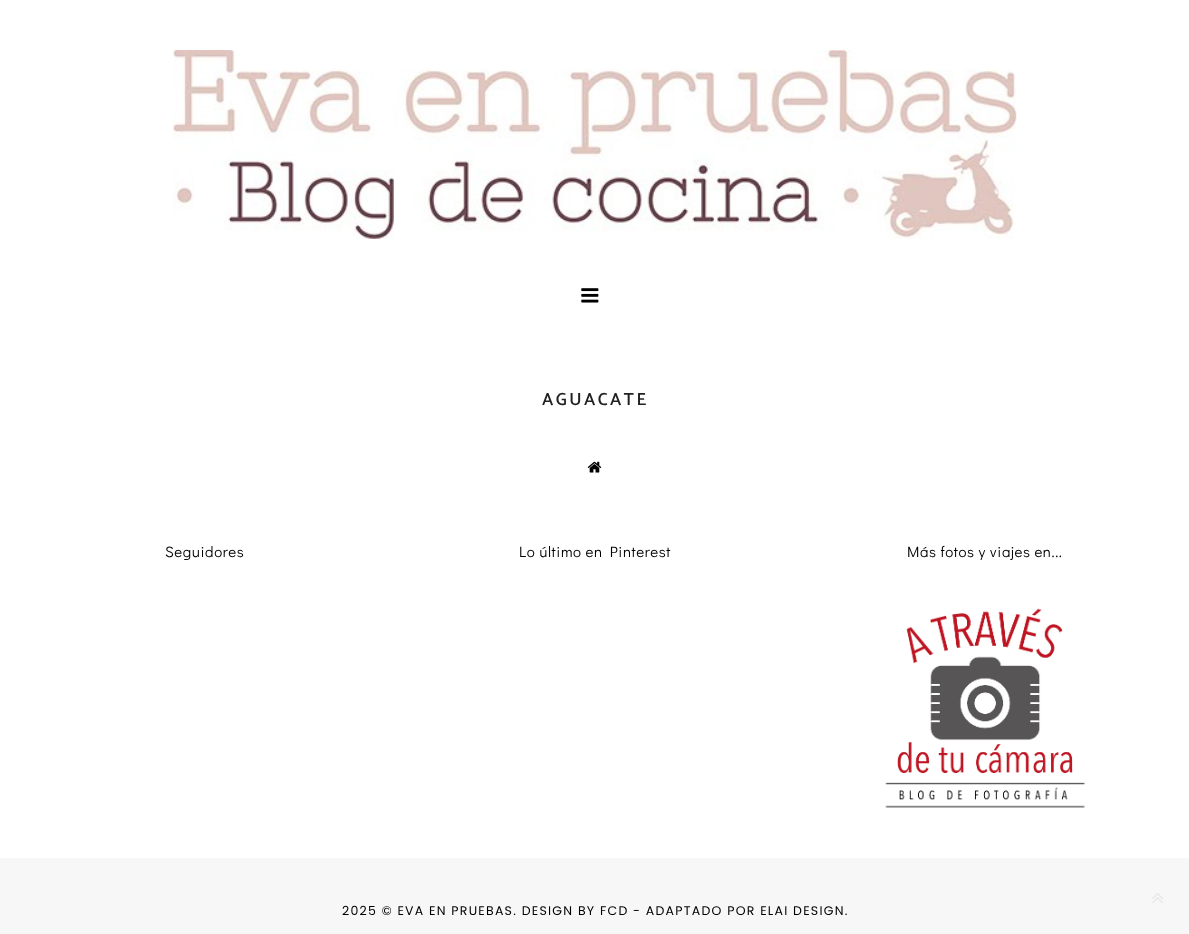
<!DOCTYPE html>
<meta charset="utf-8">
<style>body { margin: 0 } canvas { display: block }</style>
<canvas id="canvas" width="1189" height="934"></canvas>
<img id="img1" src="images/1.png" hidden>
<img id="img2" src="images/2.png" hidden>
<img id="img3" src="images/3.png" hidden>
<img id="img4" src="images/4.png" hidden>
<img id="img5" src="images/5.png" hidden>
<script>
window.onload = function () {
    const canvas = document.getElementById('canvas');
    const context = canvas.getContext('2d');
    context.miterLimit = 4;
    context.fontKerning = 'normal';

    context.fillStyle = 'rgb(255, 255, 255)';
    context.fillRect(0, 0, 1189, 934);
    context.drawImage(document.getElementById('img1'), 173, 50, 844, 189);
    context.drawImage(document.getElementById('img2'), 581, 288, 18, 15);
    context.drawImage(document.getElementById('img3'), 587, 461, 15, 12);
    context.drawImage(document.getElementById('img4'), 885, 608, 200, 200);
    context.fillStyle = 'rgb(247, 247, 247)';
    context.fillRect(0, 858, 1189, 76);
    context.drawImage(document.getElementById('img5'), 1152, 893, 11, 10);
    context.letterSpacing = '2.5px';
    context.font = '100 17.5px Catamaran';
    context.fillStyle = 'rgb(34, 34, 34)';
    context.fillText('AGUACATE', 542, 405);
    context.letterSpacing = '0.6px';
    context.font = '15px Didact Gothic';
    context.fillStyle = 'rgb(0, 0, 0)';
    context.fillText('Seguidores', 165, 557);
    context.fillText('Lo último en Pinterest', 519, 557);
    context.fillText('Más fotos y viajes en...', 907, 557);
    context.letterSpacing = '1.25px';
    context.font = '12.5px Poppins';
    context.fillText('2025 © EVA EN PRUEBAS. DESIGN BY FCD - ADAPTADO POR ELAI DESIGN.', 342, 915);
};
</script>
